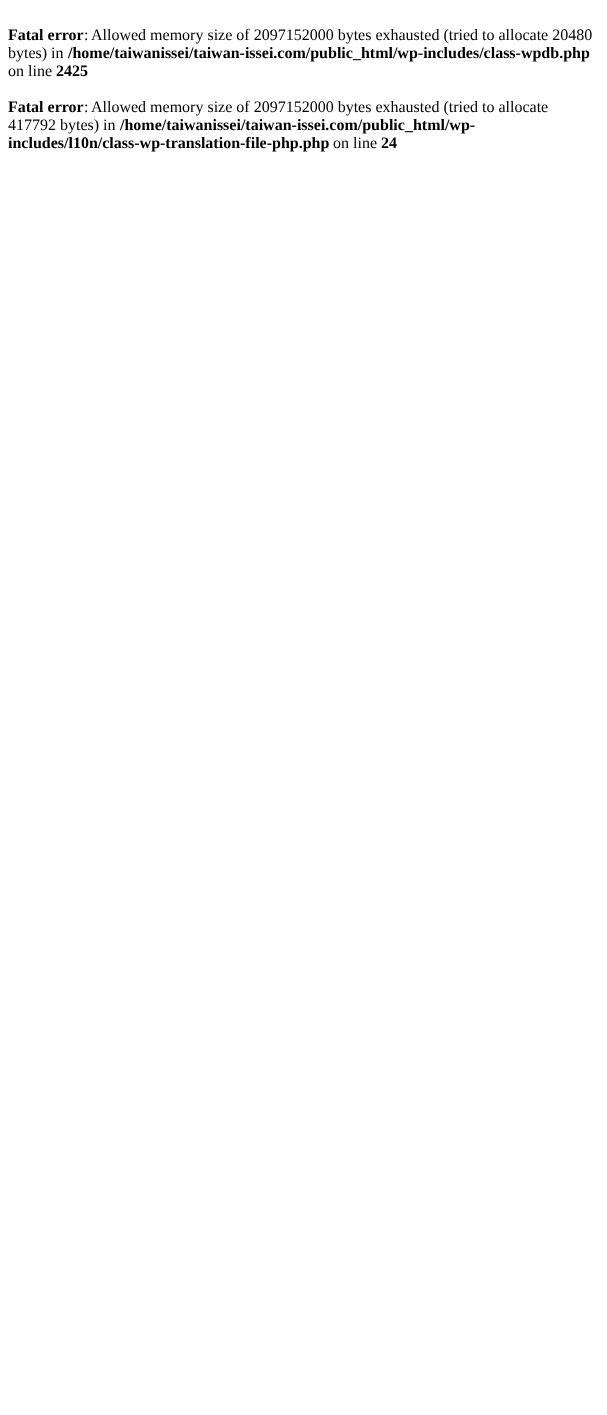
<!DOCTYPE html>
<meta charset="utf-8">
<style>body { margin: 0 } canvas { display: block }</style>
<canvas id="canvas" width="607" height="1415"></canvas>
<script>
window.onload = function () {
    const canvas = document.getElementById('canvas');
    const context = canvas.getContext('2d');
    context.miterLimit = 4;
    context.fontKerning = 'normal';

    context.fillStyle = 'rgb(255, 255, 255)';
    context.fillRect(0, 0, 607, 1415);
    context.font = 'bold 16px Liberation Serif';
    context.fillStyle = 'rgb(0, 0, 0)';
    context.fillText('Fatal error', 8, 40);
    context.font = '16px Liberation Serif';
    context.fillText(':', 84, 40);
    context.fillText('Allowed memory size of 2097152000 bytes exhausted (tried to allocate 20480', 91, 40);
    context.fillText('bytes) in', 8, 58);
    context.font = 'bold 16px Liberation Serif';
    context.fillText('/home/taiwanissei/taiwan-issei.com/public_html/wp-includes/class-wpdb.php', 68, 58);
    context.font = '16px Liberation Serif';
    context.fillText('on line', 8, 76);
    context.font = 'bold 16px Liberation Serif';
    context.fillText('2425', 56, 76);
    context.fillText('Fatal error', 8, 112);
    context.font = '16px Liberation Serif';
    context.fillText(':', 84, 112);
    context.fillText('Allowed memory size of 2097152000 bytes exhausted (tried to allocate', 91, 112);
    context.fillText('417792 bytes) in', 8, 130);
    context.font = 'bold 16px Liberation Serif';
    context.fillText('/home/taiwanissei/taiwan-issei.com/public_html/wp-', 120, 130);
    context.fillText('includes/l10n/class-wp-translation-file-php.php', 8, 148);
    context.font = '16px Liberation Serif';
    context.fillText('on line', 333, 148);
    context.font = 'bold 16px Liberation Serif';
    context.fillText('24', 381, 148);
};
</script>
